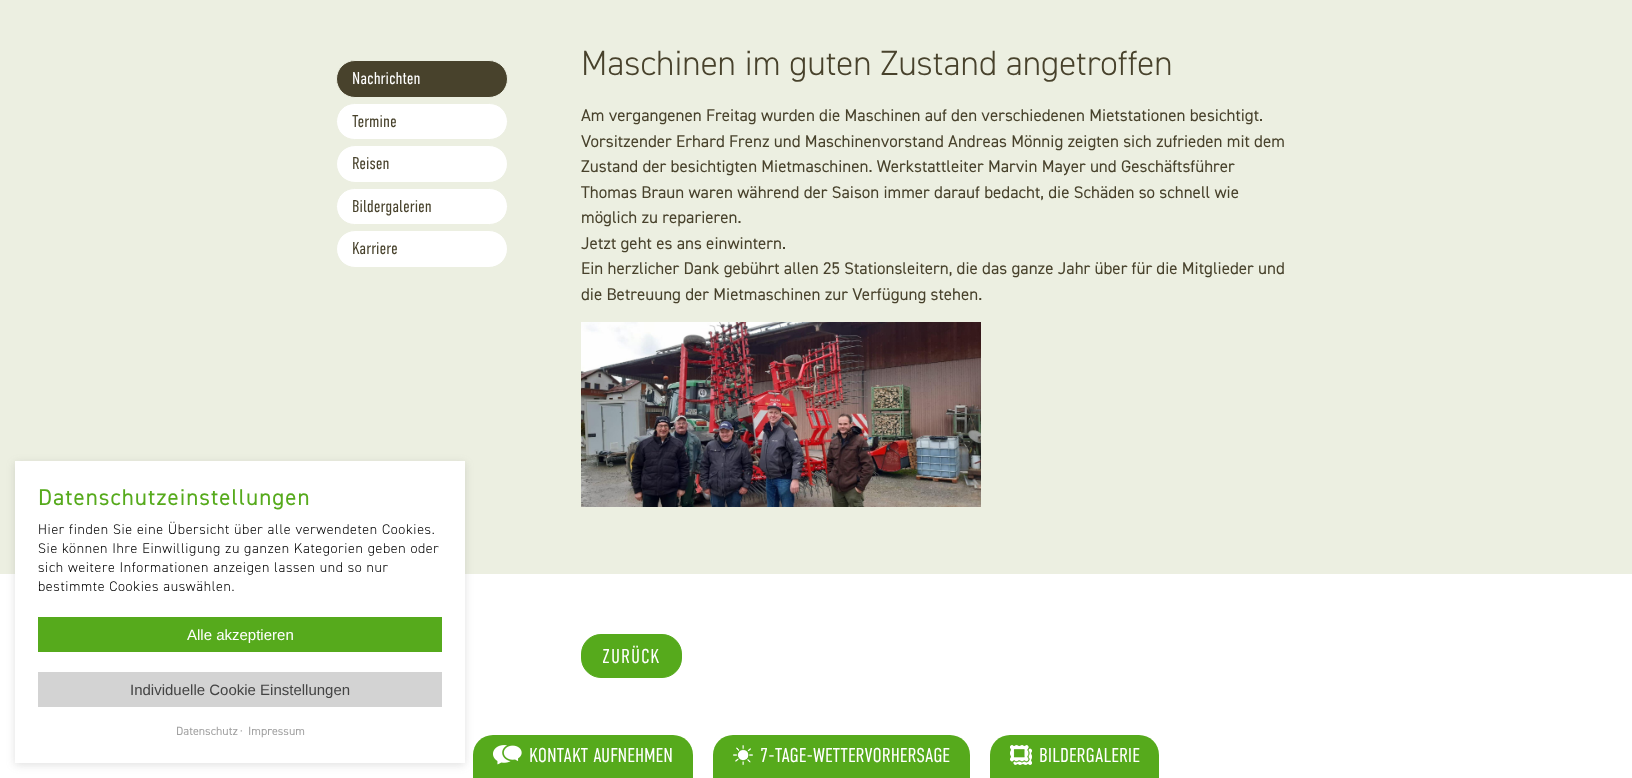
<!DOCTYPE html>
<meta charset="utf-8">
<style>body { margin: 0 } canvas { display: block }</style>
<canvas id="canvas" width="1632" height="778"></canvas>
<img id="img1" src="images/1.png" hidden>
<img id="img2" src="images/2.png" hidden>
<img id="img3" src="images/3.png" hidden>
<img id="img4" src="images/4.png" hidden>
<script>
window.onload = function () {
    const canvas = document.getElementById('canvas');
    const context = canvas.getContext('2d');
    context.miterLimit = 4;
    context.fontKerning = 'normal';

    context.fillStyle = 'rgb(255, 255, 255)';
    context.fillRect(0, 0, 1632, 778);
    context.fillStyle = 'rgb(236, 239, 225)';
    context.fillRect(0, 0, 1632, 574);
    context.fillStyle = 'rgb(86, 170, 28)';
    context.beginPath();
    context.roundRect(473, 735, 220, 43, [20, 20, 0, 0]);
    context.fill();
    context.fillStyle = 'rgba(99, 99, 99, 0.2)';
    context.filter = 'blur(4px)';
    context.beginPath();
    context.rect(15, 463, 450, 302);
    context.fill();
    context.filter = 'none';
    context.fillStyle = 'rgb(255, 255, 255)';
    context.fillRect(15, 461, 450, 302);
    context.fillStyle = 'rgb(86, 170, 28)';
    context.fillRect(38, 617, 404, 35);
    context.fillStyle = 'rgb(211, 211, 211)';
    context.fillRect(38, 672, 404, 35);
    context.fillStyle = 'rgb(72, 66, 44)';
    context.beginPath();
    context.roundRect(336.5, 60.5, 171, 37, 18.5);
    context.fill();
    context.strokeStyle = 'rgb(236, 239, 225)';
    context.stroke();
    context.fillStyle = 'rgb(255, 255, 255)';
    context.beginPath();
    context.roundRect(336.5, 103.5, 171, 36, 18);
    context.fill();
    context.stroke();
    context.beginPath();
    context.roundRect(336.5, 145.5, 171, 37, 18.5);
    context.fill();
    context.stroke();
    context.beginPath();
    context.roundRect(336.5, 188.5, 171, 36, 18);
    context.fill();
    context.stroke();
    context.beginPath();
    context.roundRect(336.5, 230.5, 171, 37, 18.5);
    context.fill();
    context.stroke();
    context.drawImage(document.getElementById('img1'), 581, 322, 400, 185);
    context.fillStyle = 'rgb(86, 170, 28)';
    context.beginPath();
    context.roundRect(581.5, 634.5, 100, 43, 19.5);
    context.fill();
    context.strokeStyle = 'rgb(86, 170, 28)';
    context.stroke();
    context.drawImage(document.getElementById('img2'), 493, 745, 29, 20);
    context.beginPath();
    context.roundRect(713, 735, 257, 43, [20, 20, 0, 0]);
    context.fill();
    context.drawImage(document.getElementById('img3'), 733, 745, 20, 20);
    context.beginPath();
    context.roundRect(990, 735, 169, 43, [20, 20, 0, 0]);
    context.fill();
    context.drawImage(document.getElementById('img4'), 1010, 745, 22, 20);
    context.letterSpacing = '1px';
    context.font = '23px "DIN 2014"';
    context.fillText('Datenschutzeinstellungen', 38, 505);
    context.letterSpacing = '0.65px';
    context.font = '300 14px "DIN 2014"';
    context.fillStyle = 'rgb(0, 0, 0)';
    context.fillText('Hier finden Sie eine Übersicht über alle verwendeten Cookies.', 38, 534);
    context.fillText('Sie können Ihre Einwilligung zu ganzen Kategorien geben oder', 38, 553);
    context.fillText('sich weitere Informationen anzeigen lassen und so nur', 38, 572);
    context.fillText('bestimmte Cookies auswählen.', 38, 591);
    context.letterSpacing = '0px';
    context.font = '15px Liberation Sans';
    context.fillStyle = 'rgb(255, 255, 255)';
    context.fillText('Alle akzeptieren', 187, 640);
    context.fillStyle = 'rgb(68, 68, 68)';
    context.fillText('Individuelle Cookie Einstellungen', 130, 695);
    context.font = '12px "DIN 2014"';
    context.fillStyle = 'rgb(162, 162, 162)';
    context.fillText('Datenschutz', 176, 735);
    context.fillText('·', 240, 735);
    context.fillText('Impressum', 248, 735);
    context.font = '300 17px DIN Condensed';
    context.fillStyle = 'rgb(255, 255, 255)';
    context.fillText('Nachrichten', 352, 84);
    context.fillStyle = 'rgb(72, 66, 44)';
    context.fillText('Termine', 352, 127);
    context.fillText('Reisen', 352, 169);
    context.fillText('Bildergalerien', 352, 212);
    context.fillText('Karriere', 352, 254);
    context.font = '300 35px "DIN 2014"';
    context.fillText('Maschinen im guten Zustand angetroffen', 581, 75);
    context.font = '17px "DIN 2014"';
    context.fillText('Am vergangenen Freitag wurden die Maschinen auf den verschiedenen Mietstationen besichtigt.', 581, 121);
    context.fillText('Vorsitzender Erhard Frenz und Maschinenvorstand Andreas Mönnig zeigten sich zufrieden mit dem', 581, 147);
    context.fillText('Zustand der besichtigten Mietmaschinen. Werkstattleiter Marvin Mayer und Geschäftsführer', 581, 172);
    context.fillText('Thomas Braun waren während der Saison immer darauf bedacht, die Schäden so schnell wie', 581, 198);
    context.fillText('möglich zu reparieren.', 581, 223);
    context.fillText('Jetzt geht es ans einwintern.', 581, 249);
    context.fillText('Ein herzlicher Dank gebührt allen 25 Stationsleitern, die das ganze Jahr über für die Mitglieder und', 581, 274);
    context.fillText('die Betreuung der Mietmaschinen zur Verfügung stehen.', 581, 300);
    context.letterSpacing = '1px';
    context.font = '300 20px DIN Condensed';
    context.fillStyle = 'rgb(255, 255, 255)';
    context.fillText('ZURÜCK', 602, 663);
    context.letterSpacing = '0px';
    context.fillText('KONTAKT AUFNEHMEN', 529, 762);
    context.fillText('7-TAGE-WETTERVORHERSAGE', 760, 762);
    context.fillText('BILDERGALERIE', 1039, 762);
};
</script>
